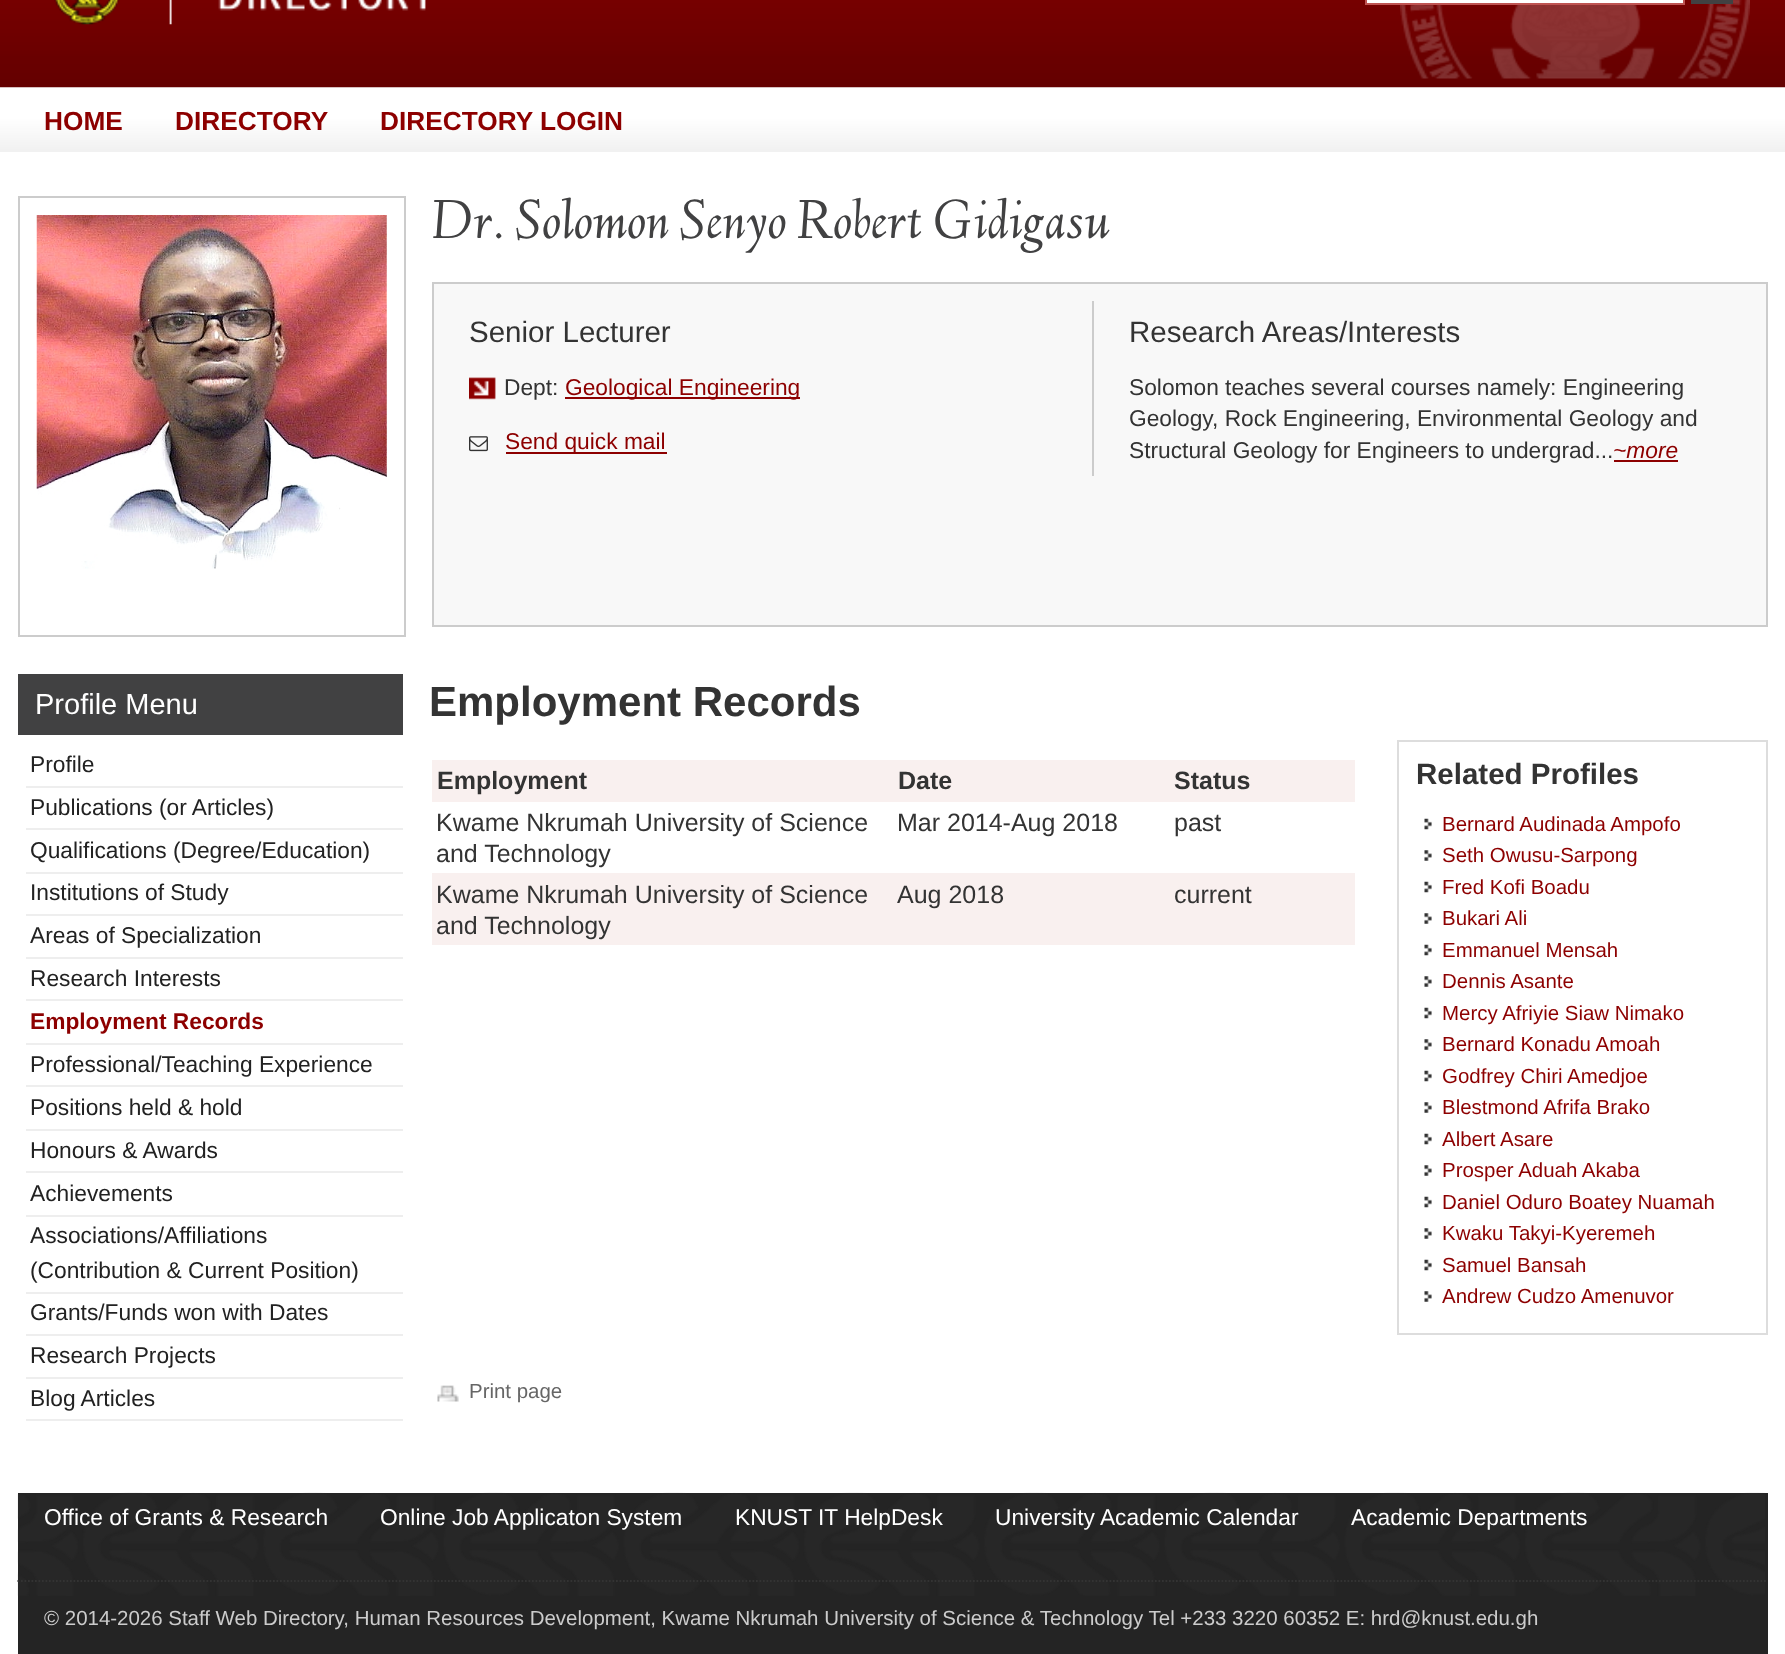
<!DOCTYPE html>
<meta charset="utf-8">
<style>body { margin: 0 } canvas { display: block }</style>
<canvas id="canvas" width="1785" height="1654"></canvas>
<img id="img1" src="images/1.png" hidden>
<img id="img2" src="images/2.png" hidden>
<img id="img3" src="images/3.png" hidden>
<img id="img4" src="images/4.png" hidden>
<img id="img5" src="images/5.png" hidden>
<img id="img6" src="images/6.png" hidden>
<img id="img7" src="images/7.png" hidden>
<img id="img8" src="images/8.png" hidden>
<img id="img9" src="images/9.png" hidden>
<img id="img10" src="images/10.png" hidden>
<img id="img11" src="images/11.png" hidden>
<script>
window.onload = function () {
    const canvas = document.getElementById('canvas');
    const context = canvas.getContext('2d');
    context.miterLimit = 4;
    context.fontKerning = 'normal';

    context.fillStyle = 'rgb(255, 255, 255)';
    context.fillRect(0, 0, 1785, 1654);
    context.drawImage(document.getElementById('img1'), 0, 0, 1785, 88);
    context.drawImage(document.getElementById('img2'), 54, 0, 372, 25);
    context.drawImage(document.getElementById('img3'), 1400, 0, 350, 79);
    context.beginPath();
    context.rect(1366, -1, 318, 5);
    context.fill();
    context.strokeStyle = 'rgb(191, 84, 82)';
    context.lineWidth = 2;
    context.stroke();
    context.fillStyle = 'rgb(65, 65, 66)';
    context.fillRect(1691, 0, 42, 4);
    context.drawImage(document.getElementById('img4'), 0, 87, 1785, 65);
    context.strokeStyle = 'rgb(204, 204, 204)';
    context.strokeRect(19, 197, 386, 439);
    context.drawImage(document.getElementById('img5'), 36, 215, 351, 354);
    context.fillStyle = 'rgb(248, 248, 248)';
    context.beginPath();
    context.rect(433, 283, 1334, 343);
    context.fill();
    context.stroke();
    context.fillStyle = 'rgb(204, 204, 204)';
    context.fillRect(1092, 301, 2, 175);
    context.drawImage(document.getElementById('img6'), 469, 377, 27, 23);
    context.fillStyle = 'rgb(141, 0, 0)';
    context.fillRect(565, 397, 235, 2);
    context.drawImage(document.getElementById('img7'), 469, 436, 19, 16);
    context.fillRect(506, 452, 161, 2);
    context.fillRect(1614, 460, 64, 2);
    context.fillStyle = 'rgb(65, 65, 66)';
    context.fillRect(18, 674, 385, 61);
    context.fillStyle = 'rgb(238, 238, 238)';
    context.fillRect(26, 786, 377, 2);
    context.fillRect(26, 828, 377, 2);
    context.fillRect(26, 872, 377, 2);
    context.fillRect(26, 914, 377, 2);
    context.fillRect(26, 957, 377, 2);
    context.fillRect(26, 999, 377, 2);
    context.fillRect(26, 1043, 377, 2);
    context.fillRect(26, 1085, 377, 2);
    context.fillRect(26, 1129, 377, 2);
    context.fillRect(26, 1171, 377, 2);
    context.fillRect(26, 1215, 377, 2);
    context.fillRect(26, 1292, 377, 2);
    context.fillRect(26, 1334, 377, 2);
    context.fillRect(26, 1377, 377, 2);
    context.fillRect(26, 1419, 377, 2);
    context.fillStyle = 'rgb(249, 240, 239)';
    context.fillRect(432, 760, 923, 42);
    context.fillRect(432, 873, 923, 72);
    context.strokeStyle = 'rgb(221, 221, 221)';
    context.strokeRect(1398, 741, 369, 593);
    context.drawImage(document.getElementById('img8'), 1424, 818, 8, 12);
    context.drawImage(document.getElementById('img9'), 1424, 850, 8, 11);
    context.drawImage(document.getElementById('img8'), 1424, 881, 8, 12);
    context.drawImage(document.getElementById('img9'), 1424, 913, 8, 11);
    context.drawImage(document.getElementById('img8'), 1424, 944, 8, 12);
    context.drawImage(document.getElementById('img9'), 1424, 976, 8, 11);
    context.drawImage(document.getElementById('img8'), 1424, 1007, 8, 12);
    context.drawImage(document.getElementById('img9'), 1424, 1039, 8, 11);
    context.drawImage(document.getElementById('img8'), 1424, 1070, 8, 12);
    context.drawImage(document.getElementById('img9'), 1424, 1102, 8, 11);
    context.drawImage(document.getElementById('img8'), 1424, 1133, 8, 12);
    context.drawImage(document.getElementById('img9'), 1424, 1165, 8, 11);
    context.drawImage(document.getElementById('img8'), 1424, 1196, 8, 12);
    context.drawImage(document.getElementById('img9'), 1424, 1228, 8, 11);
    context.drawImage(document.getElementById('img8'), 1424, 1259, 8, 12);
    context.drawImage(document.getElementById('img9'), 1424, 1291, 8, 11);
    context.drawImage(document.getElementById('img10'), 437, 1385, 22, 17);
    context.fillStyle = 'rgb(36, 36, 36)';
    context.fillRect(18, 1493, 1750, 161);
    context.drawImage(document.getElementById('img11'), 17, 1492, 1748, 104);
    context.beginPath();
    context.moveTo(17.5, 1581);
    context.lineTo(1767.5, 1581);
    context.strokeStyle = 'rgb(51, 51, 51)';
    context.lineWidth = 1.8;
    context.setLineDash([1.75, 1.75]);
    context.stroke();
    context.font = 'bold 26.25px Liberation Sans';
    context.fillStyle = 'rgb(141, 0, 0)';
    context.fillText('HOME', 44, 130);
    context.fillText('DIRECTORY', 175, 130);
    context.fillText('DIRECTORY LOGIN', 380, 130);
    context.font = 'italic 56.9px Linden Hill';
    context.fillStyle = 'rgb(65, 65, 66)';
    context.fillText('Dr. Solomon Senyo Robert Gidigasu', 432, 238);
    context.font = '29.5px Liberation Sans';
    context.fillStyle = 'rgb(51, 51, 51)';
    context.fillText('Senior Lecturer', 469, 342);
    context.font = '22.75px Liberation Sans';
    context.fillText('Dept:', 504, 395);
    context.fillStyle = 'rgb(141, 0, 0)';
    context.fillText('Geological Engineering', 565, 395);
    context.fillText('Send quick mail', 505, 449);
    context.font = '29.5px Liberation Sans';
    context.fillStyle = 'rgb(51, 51, 51)';
    context.fillText('Research Areas/Interests', 1129, 342);
    context.font = '22.75px Liberation Sans';
    context.fillText('Solomon teaches several courses namely: Engineering', 1129, 395);
    context.fillText('Geology, Rock Engineering, Environmental Geology and', 1129, 426);
    context.fillText('Structural Geology for Engineers to undergrad...', 1129, 458);
    context.font = 'italic 22.75px Liberation Sans';
    context.fillStyle = 'rgb(141, 0, 0)';
    context.fillText('~more', 1613, 458);
    context.font = '29px Liberation Sans';
    context.fillStyle = 'rgb(255, 255, 255)';
    context.fillText('Profile Menu', 35, 714);
    context.font = '22.75px Liberation Sans';
    context.fillStyle = 'rgb(34, 34, 34)';
    context.fillText('Profile', 30, 772);
    context.fillText('Publications (or Articles)', 30, 815);
    context.fillText('Qualifications (Degree/Education)', 30, 858);
    context.fillText('Institutions of Study', 30, 900);
    context.fillText('Areas of Specialization', 30, 943);
    context.fillText('Research Interests', 30, 986);
    context.font = 'bold 22.75px Liberation Sans';
    context.fillStyle = 'rgb(141, 0, 0)';
    context.fillText('Employment Records', 30, 1029);
    context.font = '22.75px Liberation Sans';
    context.fillStyle = 'rgb(34, 34, 34)';
    context.fillText('Professional/Teaching Experience', 30, 1072);
    context.fillText('Positions held & hold', 30, 1115);
    context.fillText('Honours & Awards', 30, 1158);
    context.fillText('Achievements', 30, 1201);
    context.fillText('Associations/Affiliations', 30, 1243);
    context.fillText('(Contribution & Current Position)', 30, 1278);
    context.fillText('Grants/Funds won with Dates', 30, 1320);
    context.fillText('Research Projects', 30, 1363);
    context.fillText('Blog Articles', 30, 1406);
    context.font = 'bold 42px Liberation Sans';
    context.fillStyle = 'rgb(51, 51, 51)';
    context.fillText('Employment Records', 429, 716);
    context.font = 'bold 25px Liberation Sans';
    context.fillText('Employment', 437, 789);
    context.fillText('Date', 898, 789);
    context.fillText('Status', 1174, 789);
    context.font = '25px Liberation Sans';
    context.fillText('Kwame Nkrumah University of Science', 436, 831);
    context.fillText('and Technology', 436, 862);
    context.fillText('Mar 2014-Aug 2018', 897, 831);
    context.fillText('past', 1174, 831);
    context.fillText('Kwame Nkrumah University of Science', 436, 903);
    context.fillText('and Technology', 436, 934);
    context.fillText('Aug 2018', 897, 903);
    context.fillText('current', 1174, 903);
    context.font = 'bold 29.5px Liberation Sans';
    context.fillText('Related Profiles', 1416, 784);
    context.font = '20.47px Liberation Sans';
    context.fillStyle = 'rgb(141, 0, 0)';
    context.fillText('Bernard Audinada Ampofo', 1442, 831);
    context.fillText('Seth Owusu-Sarpong', 1442, 862);
    context.fillText('Fred Kofi Boadu', 1442, 894);
    context.fillText('Bukari Ali', 1442, 925);
    context.fillText('Emmanuel Mensah', 1442, 957);
    context.fillText('Dennis Asante', 1442, 988);
    context.fillText('Mercy Afriyie Siaw Nimako', 1442, 1020);
    context.fillText('Bernard Konadu Amoah', 1442, 1051);
    context.fillText('Godfrey Chiri Amedjoe', 1442, 1083);
    context.fillText('Blestmond Afrifa Brako', 1442, 1114);
    context.fillText('Albert Asare', 1442, 1146);
    context.fillText('Prosper Aduah Akaba', 1442, 1177);
    context.fillText('Daniel Oduro Boatey Nuamah', 1442, 1209);
    context.fillText('Kwaku Takyi-Kyeremeh', 1442, 1240);
    context.fillText('Samuel Bansah', 1442, 1272);
    context.fillText('Andrew Cudzo Amenuvor', 1442, 1303);
    context.fillStyle = 'rgb(102, 102, 102)';
    context.fillText('Print page', 469, 1398);
    context.font = '22.75px Liberation Sans';
    context.fillStyle = 'rgb(255, 255, 255)';
    context.fillText('Office of Grants & Research', 44, 1525);
    context.fillText('Online Job Applicaton System', 380, 1525);
    context.fillText('KNUST IT HelpDesk', 735, 1525);
    context.fillText('University Academic Calendar', 995, 1525);
    context.fillText('Academic Departments', 1351, 1525);
    context.font = '20.47px Liberation Sans';
    context.fillStyle = 'rgb(204, 204, 204)';
    context.fillText('© 2014-2026 Staff Web Directory, Human Resources Development, Kwame Nkrumah University of Science & Technology Tel +233 3220 60352 E: hrd@knust.edu.gh', 44, 1625);
};
</script>
